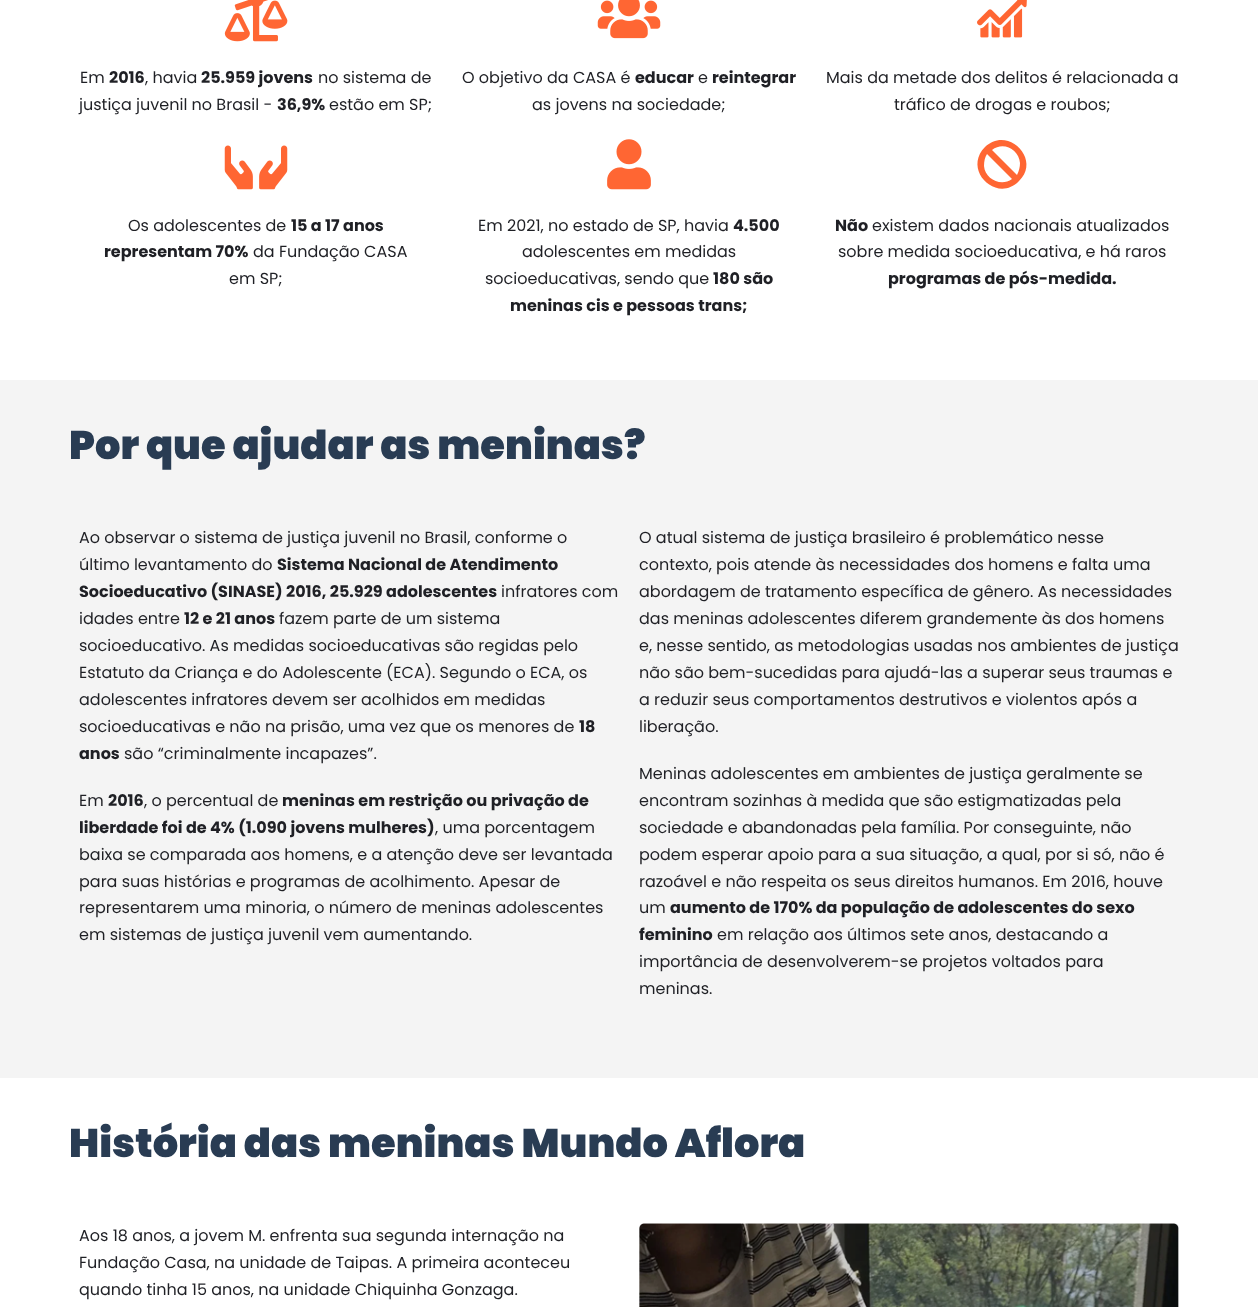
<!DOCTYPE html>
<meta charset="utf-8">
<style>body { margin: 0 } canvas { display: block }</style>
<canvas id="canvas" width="1258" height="1307"></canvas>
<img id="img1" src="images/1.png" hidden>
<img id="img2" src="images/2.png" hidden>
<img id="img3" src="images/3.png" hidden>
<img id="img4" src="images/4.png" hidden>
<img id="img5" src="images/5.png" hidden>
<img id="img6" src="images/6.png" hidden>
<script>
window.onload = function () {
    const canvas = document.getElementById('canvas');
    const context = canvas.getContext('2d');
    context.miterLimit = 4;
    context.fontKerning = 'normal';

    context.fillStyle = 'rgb(255, 255, 255)';
    context.fillRect(0, 0, 1258, 1307);
    context.drawImage(document.getElementById('img1'), 224, 0, 64, 42);
    context.drawImage(document.getElementById('img2'), 597, 0, 64, 39);
    context.drawImage(document.getElementById('img3'), 977, 0, 50, 38);
    context.drawImage(document.getElementById('img4'), 224, 145, 64, 45);
    context.drawImage(document.getElementById('img5'), 607, 139, 44, 51);
    context.fillStyle = 'rgb(255, 102, 51)';
    context.beginPath();
    context.moveTo(985, 147);
    context.bezierCurveTo(1007, 125, 1042, 159, 1019, 181);
    context.bezierCurveTo(997, 204, 962, 170, 985, 147);
    context.closePath();
    context.moveTo(1020, 163);
    context.bezierCurveTo(1019, 149, 1003, 141, 992, 150);
    context.lineTo(1017, 175);
    context.bezierCurveTo(1019, 171, 1020, 167, 1020, 163);
    context.closePath();
    context.moveTo(984, 166);
    context.bezierCurveTo(985, 179, 1001, 187, 1012, 179);
    context.lineTo(987, 154);
    context.bezierCurveTo(985, 157, 984, 161, 984, 166);
    context.closePath();
    context.fill();
    context.fillStyle = 'rgb(244, 244, 244)';
    context.fillRect(0, 380, 1258, 698);
    context.drawImage(document.getElementById('img6'), 639, 1223, 540, 84);
    context.font = '16px Poppins';
    context.fillStyle = 'rgb(31, 32, 37)';
    context.fillText('Em', 80, 83);
    context.font = 'bold 16px Poppins';
    context.fillText('2016', 109, 83);
    context.font = '16px Poppins';
    context.fillText(', havia', 145, 83);
    context.font = 'bold 16px Poppins';
    context.fillText('25.959 jovens', 201, 83);
    context.font = '16px Poppins';
    context.fillText('no sistema de', 318, 83);
    context.fillText('justiça juvenil no Brasil -', 79, 110);
    context.font = 'bold 16px Poppins';
    context.fillText('36,9%', 277, 110);
    context.font = '16px Poppins';
    context.fillText('estão em SP;', 329, 110);
    context.fillText('O objetivo da CASA é', 462, 83);
    context.font = 'bold 16px Poppins';
    context.fillText('educar', 635, 83);
    context.font = '16px Poppins';
    context.fillText('e', 698, 83);
    context.font = 'bold 16px Poppins';
    context.fillText('reintegrar', 712, 83);
    context.font = '16px Poppins';
    context.fillText('as jovens na sociedade;', 532, 110);
    context.fillText('Mais da metade dos delitos é relacionada a', 826, 83);
    context.fillText('tráfico de drogas e roubos;', 894, 110);
    context.fillText('Os adolescentes de', 128, 231);
    context.font = 'bold 16px Poppins';
    context.fillText('15 a 17 anos', 291, 231);
    context.fillText('representam 70%', 104, 257);
    context.font = '16px Poppins';
    context.fillText('da Fundação CASA', 253, 257);
    context.fillText('em SP;', 229, 284);
    context.fillText('Em 2021, no estado de SP, havia', 478, 231);
    context.font = 'bold 16px Poppins';
    context.fillText('4.500', 733, 231);
    context.font = '16px Poppins';
    context.fillText('adolescentes em medidas', 522, 257);
    context.fillText('socioeducativas, sendo que', 485, 284);
    context.font = 'bold 16px Poppins';
    context.fillText('180 são', 713, 284);
    context.fillText('meninas cis e pessoas trans;', 510, 311);
    context.fillText('Não', 835, 231);
    context.font = '16px Poppins';
    context.fillText('existem dados nacionais atualizados', 872, 231);
    context.fillText('sobre medida socioeducativa, e há raros', 838, 257);
    context.font = 'bold 16px Poppins';
    context.fillText('programas de pós-medida.', 888, 284);
    context.font = '900 40px Poppins';
    context.fillStyle = 'rgb(41, 60, 83)';
    context.fillText('Por que ajudar as meninas?', 69, 459);
    context.font = '16px Poppins';
    context.fillStyle = 'rgb(31, 32, 37)';
    context.fillText('Ao observar o sistema de justiça juvenil no Brasil, conforme o', 79, 543);
    context.fillText('último levantamento do', 79, 570);
    context.font = 'bold 16px Poppins';
    context.fillText('Sistema Nacional de Atendimento', 277, 570);
    context.fillText('Socioeducativo (SINASE) 2016, 25.929 adolescentes', 79, 597);
    context.font = '16px Poppins';
    context.fillText('infratores com', 501, 597);
    context.fillText('idades entre', 79, 624);
    context.font = 'bold 16px Poppins';
    context.fillText('12 e 21 anos', 184, 624);
    context.font = '16px Poppins';
    context.fillText('fazem parte de um sistema', 279, 624);
    context.fillText('socioeducativo. As medidas socioeducativas são regidas pelo', 79, 651);
    context.fillText('Estatuto da Criança e do Adolescente (ECA). Segundo o ECA, os', 79, 678);
    context.fillText('adolescentes infratores devem ser acolhidos em medidas', 79, 705);
    context.fillText('socioeducativas e não na prisão, uma vez que os menores de', 79, 732);
    context.font = 'bold 16px Poppins';
    context.fillText('18', 579, 732);
    context.fillText('anos', 79, 759);
    context.font = '16px Poppins';
    context.fillText('são “criminalmente incapazes”.', 124, 759);
    context.fillText('Em', 79, 806);
    context.font = 'bold 16px Poppins';
    context.fillText('2016', 108, 806);
    context.font = '16px Poppins';
    context.fillText(', o percentual de', 144, 806);
    context.font = 'bold 16px Poppins';
    context.fillText('meninas em restrição ou privação de', 282, 806);
    context.fillText('liberdade foi de 4% (1.090 jovens mulheres)', 79, 833);
    context.font = '16px Poppins';
    context.fillText(', uma porcentagem', 435, 833);
    context.fillText('baixa se comparada aos homens, e a atenção deve ser levantada', 79, 860);
    context.fillText('para suas histórias e programas de acolhimento. Apesar de', 79, 887);
    context.fillText('representarem uma minoria, o número de meninas adolescentes', 79, 913);
    context.fillText('em sistemas de justiça juvenil vem aumentando.', 79, 940);
    context.fillText('O atual sistema de justiça brasileiro é problemático nesse', 639, 543);
    context.fillText('contexto, pois atende às necessidades dos homens e falta uma', 639, 570);
    context.fillText('abordagem de tratamento específica de gênero. As necessidades', 639, 597);
    context.fillText('das meninas adolescentes diferem grandemente às dos homens', 639, 624);
    context.fillText('e, nesse sentido, as metodologias usadas nos ambientes de justiça', 639, 651);
    context.fillText('não são bem-sucedidas para ajudá-las a superar seus traumas e', 639, 678);
    context.fillText('a reduzir seus comportamentos destrutivos e violentos após a', 639, 705);
    context.fillText('liberação.', 639, 732);
    context.fillText('Meninas adolescentes em ambientes de justiça geralmente se', 639, 779);
    context.fillText('encontram sozinhas à medida que são estigmatizadas pela', 639, 806);
    context.fillText('sociedade e abandonadas pela família. Por conseguinte, não', 639, 833);
    context.fillText('podem esperar apoio para a sua situação, a qual, por si só, não é', 639, 860);
    context.fillText('razoável e não respeita os seus direitos humanos. Em 2016, houve', 639, 887);
    context.fillText('um', 639, 913);
    context.font = 'bold 16px Poppins';
    context.fillText('aumento de 170% da população de adolescentes do sexo', 670, 913);
    context.fillText('feminino', 639, 940);
    context.font = '16px Poppins';
    context.fillText('em relação aos últimos sete anos, destacando a', 717, 940);
    context.fillText('importância de desenvolverem-se projetos voltados para', 639, 967);
    context.fillText('meninas.', 639, 994);
    context.font = '900 40px Poppins';
    context.fillStyle = 'rgb(41, 60, 83)';
    context.fillText('História das meninas Mundo Aflora', 69, 1157);
    context.font = '16px Poppins';
    context.fillStyle = 'rgb(31, 32, 37)';
    context.fillText('Aos 18 anos, a jovem M. enfrenta sua segunda internação na', 79, 1241);
    context.fillText('Fundação Casa, na unidade de Taipas. A primeira aconteceu', 79, 1268);
    context.fillText('quando tinha 15 anos, na unidade Chiquinha Gonzaga.', 79, 1295);
};
</script>
